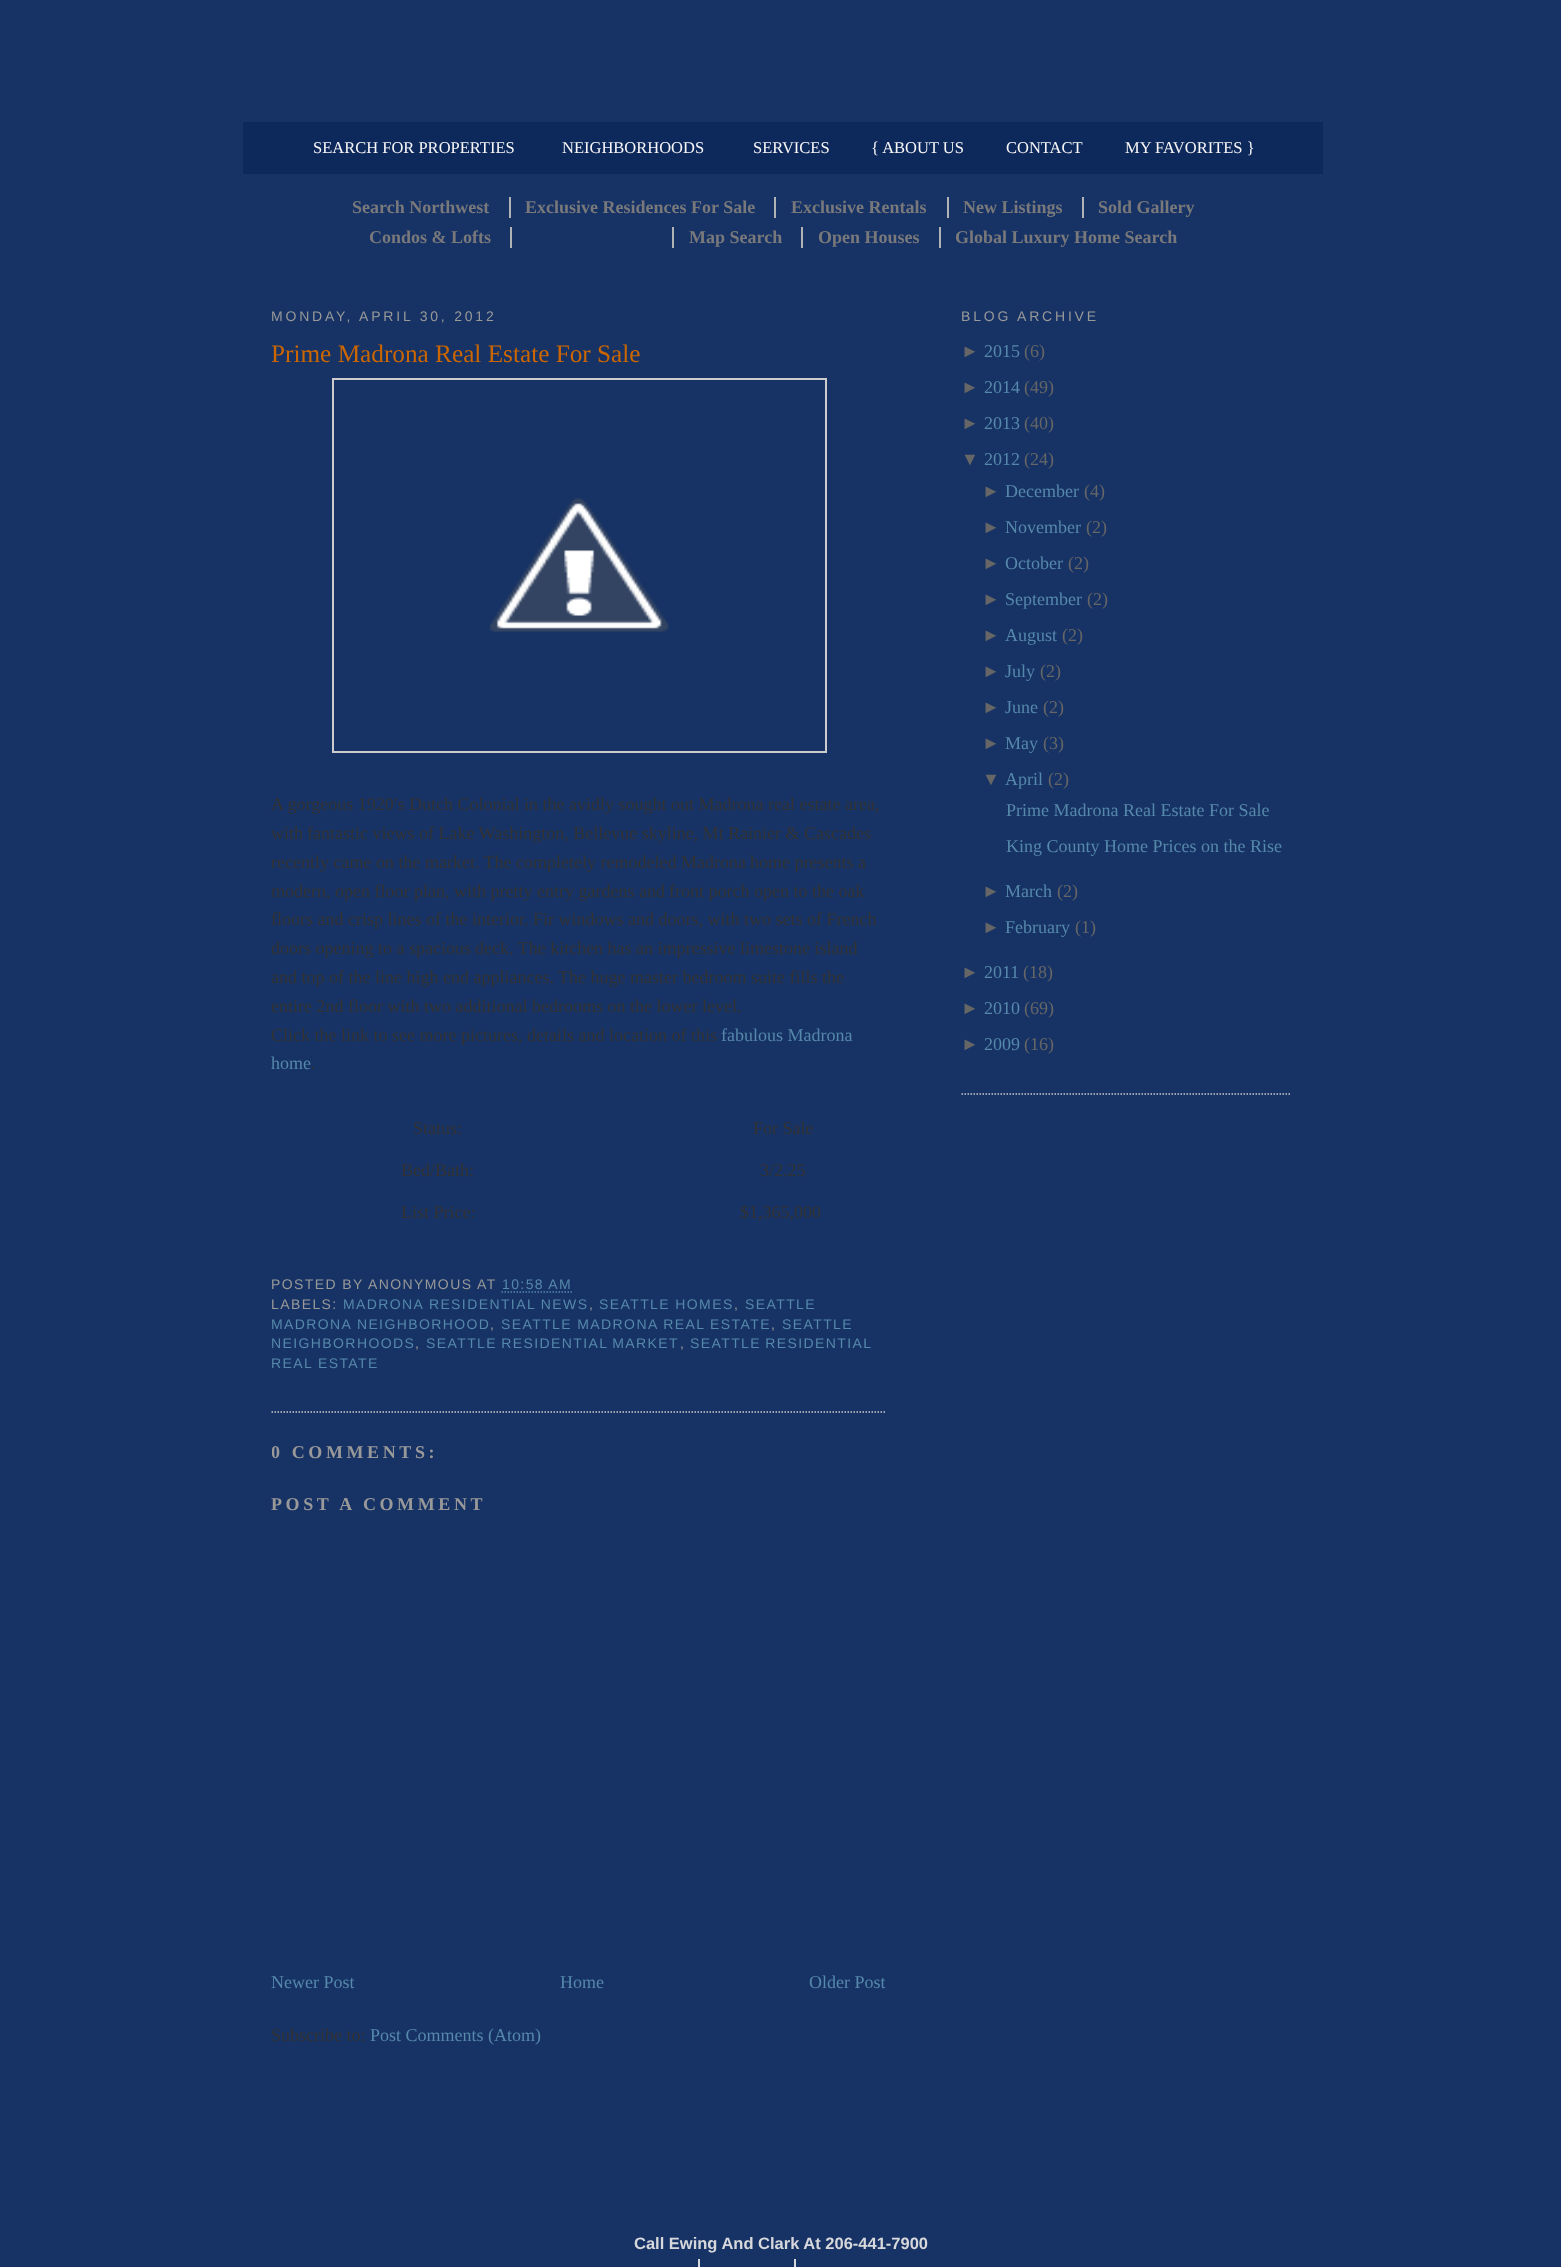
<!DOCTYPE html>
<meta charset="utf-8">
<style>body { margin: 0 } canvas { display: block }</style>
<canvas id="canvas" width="1561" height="2267"></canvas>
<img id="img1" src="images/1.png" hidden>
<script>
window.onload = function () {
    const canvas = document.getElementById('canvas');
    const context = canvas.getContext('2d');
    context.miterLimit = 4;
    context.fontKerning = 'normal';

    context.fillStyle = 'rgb(23, 51, 101)';
    context.fillRect(0, 0, 1561, 2267);
    context.fillStyle = 'rgb(13, 41, 91)';
    context.fillRect(243, 122, 1080, 52);
    context.fillStyle = 'rgb(177, 178, 180)';
    context.fillRect(509, 197, 2, 21);
    context.fillRect(774, 197, 2, 21);
    context.fillRect(947, 197, 2, 21);
    context.fillRect(1082, 197, 2, 21);
    context.fillRect(510, 227, 2, 21);
    context.fillRect(672, 227, 2, 21);
    context.fillRect(801, 227, 2, 21);
    context.fillRect(939, 227, 2, 21);
    context.beginPath();
    context.moveTo(271.5, 1412);
    context.lineTo(886.5, 1412);
    context.strokeStyle = 'rgb(204, 204, 204)';
    context.lineWidth = 1.5;
    context.setLineDash([1.5, 1.5]);
    context.stroke();
    context.lineWidth = 2;
    context.setLineDash([]);
    context.strokeRect(333, 379, 493, 373);
    context.drawImage(document.getElementById('img1'), 489, 498, 180, 134);
    context.beginPath();
    context.moveTo(501.5, 1292);
    context.lineTo(572, 1292);
    context.strokeStyle = 'rgb(85, 136, 170)';
    context.lineWidth = 1.5;
    context.setLineDash([1.5, 1.5]);
    context.stroke();
    context.beginPath();
    context.moveTo(961.5, 1094);
    context.lineTo(1291.5, 1094);
    context.strokeStyle = 'rgb(204, 204, 204)';
    context.stroke();
    context.fillStyle = 'rgb(215, 216, 220)';
    context.fillRect(698, 2259, 2, 8);
    context.fillRect(794, 2259, 2, 8);
    context.font = '16.5px Liberation Serif';
    context.fillStyle = 'rgb(248, 246, 247)';
    context.fillText('SEARCH FOR PROPERTIES', 313, 153);
    context.fillText('NEIGHBORHOODS', 562, 153);
    context.fillText('SERVICES', 753, 153);
    context.fillText('{ ABOUT US', 871, 153);
    context.fillText('CONTACT', 1006, 153);
    context.fillText('MY FAVORITES }', 1125, 153);
    context.font = 'bold 18px Liberation Serif';
    context.fillStyle = 'rgb(121, 121, 123)';
    context.fillText('Search Northwest', 352, 213);
    context.fillText('Exclusive Residences For Sale', 525, 213);
    context.fillText('Exclusive Rentals', 791, 213);
    context.fillText('New Listings', 963, 213);
    context.fillText('Sold Gallery', 1098, 213);
    context.fillText('Condos & Lofts', 369, 243);
    context.fillText('Map Search', 689, 243);
    context.fillText('Open Houses', 818, 243);
    context.fillText('Global Luxury Home Search', 955, 243);
    context.save();
    context.beginPath();
    context.rect(272, 287, 615, 1825);
    context.clip();
    context.letterSpacing = '2.8px';
    context.font = '14px Liberation Sans';
    context.fillStyle = 'rgb(153, 153, 153)';
    context.fillText('MONDAY, APRIL 30, 2012', 271, 321);
    context.letterSpacing = '0px';
    context.font = '25.25px Liberation Serif';
    context.fillStyle = 'rgb(204, 102, 0)';
    context.fillText('Prime Madrona Real Estate For Sale', 271, 362);
    context.restore();
    context.font = '18px Liberation Serif';
    context.fillStyle = 'rgb(51, 51, 51)';
    context.fillText('A gorgeous 1920′s Dutch Colonial in the avidly sought out Madrona real estate area,', 271, 810);
    context.save();
    context.beginPath();
    context.rect(272, 287, 615, 1825);
    context.clip();
    context.fillText('with', 271, 839);
    context.restore();
    context.fillText('fantastic views of Lake Washington, Bellevue skyline, Mt Rainier & Cascades', 307, 839);
    context.save();
    context.beginPath();
    context.rect(272, 287, 615, 1825);
    context.clip();
    context.fillText('recently came on the market. The completely remodeled Madrona', 271, 868);
    context.restore();
    context.fillText('home presents a', 750, 868);
    context.save();
    context.beginPath();
    context.rect(272, 287, 615, 1825);
    context.clip();
    context.fillText('modern, open floor plan, with pretty entry gardens and', 271, 897);
    context.restore();
    context.fillText('front porch open to the oak', 669, 897);
    context.fillText('floors and crisp lines of the interior. Fir windows and doors, with two sets of French', 271, 925);
    context.save();
    context.beginPath();
    context.rect(272, 287, 615, 1825);
    context.clip();
    context.fillText('doors opening to a spacious', 271, 954);
    context.restore();
    context.fillText('deck. The kitchen has an impressive limestone island', 475, 954);
    context.save();
    context.beginPath();
    context.rect(272, 287, 615, 1825);
    context.clip();
    context.fillText('and top of the line high end appliances.', 271, 983);
    context.restore();
    context.fillText('The huge master bedroom suite fills the', 558, 983);
    context.save();
    context.beginPath();
    context.rect(272, 287, 615, 1825);
    context.clip();
    context.fillText('entire 2nd floor with two additional', 271, 1012);
    context.restore();
    context.fillText('bedrooms on the lower level.', 532, 1012);
    context.save();
    context.beginPath();
    context.rect(272, 287, 615, 1825);
    context.clip();
    context.fillText('Click the link to see more pictures, details and location of this', 271, 1041);
    context.restore();
    context.fillStyle = 'rgb(85, 136, 170)';
    context.fillText('fabulous Madrona', 721, 1041);
    context.fillText('home', 271, 1069);
    context.fillStyle = 'rgb(51, 51, 51)';
    context.fillText('.', 311, 1069);
    context.fillText('Status:', 413, 1134);
    context.fillText('For Sale', 753, 1134);
    context.fillText('Bed/Bath:', 401, 1176);
    context.fillText('3/2.25', 760, 1176);
    context.fillText('List Price:', 401, 1218);
    context.fillText('$1,365,000', 740, 1218);
    context.save();
    context.beginPath();
    context.rect(272, 287, 615, 1825);
    context.clip();
    context.letterSpacing = '1.4px';
    context.font = '14px Liberation Sans';
    context.fillStyle = 'rgb(153, 153, 153)';
    context.fillText('POSTED BY', 271, 1289);
    context.restore();
    context.letterSpacing = '1.4px';
    context.font = '14px Liberation Sans';
    context.fillStyle = 'rgb(153, 153, 153)';
    context.fillText('ANONYMOUS', 368, 1289);
    context.fillText('AT', 477, 1289);
    context.fillStyle = 'rgb(85, 136, 170)';
    context.fillText('10:58 AM', 502, 1289);
    context.save();
    context.beginPath();
    context.rect(272, 287, 615, 1825);
    context.clip();
    context.fillStyle = 'rgb(153, 153, 153)';
    context.fillText('LABELS:', 271, 1309);
    context.restore();
    context.fillText('MADRONA RESIDENTIAL NEWS', 343, 1309);
    context.fillStyle = 'rgb(153, 153, 153)';
    context.fillText(',', 589, 1309);
    context.fillStyle = 'rgb(85, 136, 170)';
    context.fillText('SEATTLE HOMES', 599, 1309);
    context.fillStyle = 'rgb(153, 153, 153)';
    context.fillText(',', 734, 1309);
    context.fillStyle = 'rgb(85, 136, 170)';
    context.fillText('SEATTLE', 745, 1309);
    context.save();
    context.beginPath();
    context.rect(272, 287, 615, 1825);
    context.clip();
    context.fillText('MADRONA NEIGHBORHOOD', 271, 1329);
    context.restore();
    context.fillStyle = 'rgb(153, 153, 153)';
    context.fillText(',', 490, 1329);
    context.fillStyle = 'rgb(85, 136, 170)';
    context.fillText('SEATTLE MADRONA REAL ESTATE', 501, 1329);
    context.fillStyle = 'rgb(153, 153, 153)';
    context.fillText(',', 771, 1329);
    context.fillStyle = 'rgb(85, 136, 170)';
    context.fillText('SEATTLE', 782, 1329);
    context.save();
    context.beginPath();
    context.rect(272, 287, 615, 1825);
    context.clip();
    context.fillText('NEIGHBORHOODS', 271, 1348);
    context.restore();
    context.fillStyle = 'rgb(153, 153, 153)';
    context.fillText(',', 415, 1348);
    context.wordSpacing = '-1px';
    context.fillStyle = 'rgb(85, 136, 170)';
    context.fillText('SEATTLE RESIDENTIAL MARKET', 426, 1348);
    context.wordSpacing = '0px';
    context.fillStyle = 'rgb(153, 153, 153)';
    context.fillText(',', 680, 1348);
    context.wordSpacing = '-1px';
    context.fillStyle = 'rgb(85, 136, 170)';
    context.fillText('SEATTLE RESIDENTIAL', 690, 1348);
    context.save();
    context.beginPath();
    context.rect(272, 287, 615, 1825);
    context.clip();
    context.wordSpacing = '0px';
    context.fillText('REAL ESTATE', 271, 1368);
    context.letterSpacing = '3.6px';
    context.font = 'bold 18px Liberation Serif';
    context.fillStyle = 'rgb(153, 153, 153)';
    context.fillText('0 COMMENTS:', 271, 1458);
    context.restore();
    context.letterSpacing = '3.6px';
    context.wordSpacing = '0px';
    context.font = 'bold 18px Liberation Serif';
    context.fillStyle = 'rgb(153, 153, 153)';
    context.fillText('POST A COMMENT', 271, 1510);
    context.letterSpacing = '0px';
    context.font = '18px Liberation Serif';
    context.fillStyle = 'rgb(85, 136, 170)';
    context.fillText('Newer Post', 271, 1988);
    context.fillText('Home', 560, 1988);
    context.fillText('Older Post', 809, 1988);
    context.fillStyle = 'rgb(51, 51, 51)';
    context.fillText('Subscribe to:', 271, 2041);
    context.fillStyle = 'rgb(85, 136, 170)';
    context.fillText('Post Comments (Atom)', 370, 2041);
    context.save();
    context.beginPath();
    context.rect(962, 287, 330, 835);
    context.clip();
    context.letterSpacing = '2.8px';
    context.font = '14px Liberation Sans';
    context.fillStyle = 'rgb(153, 153, 153)';
    context.fillText('BLOG ARCHIVE', 961, 321);
    context.restore();
    context.font = '18px Liberation Sans';
    context.fillStyle = 'rgb(102, 102, 102)';
    context.fillText('►', 961, 357);
    context.font = '18px Liberation Serif';
    context.fillStyle = 'rgb(85, 136, 170)';
    context.fillText('2015', 984, 357);
    context.fillStyle = 'rgb(102, 102, 102)';
    context.fillText('(6)', 1024, 357);
    context.font = '18px Liberation Sans';
    context.fillText('►', 961, 393);
    context.font = '18px Liberation Serif';
    context.fillStyle = 'rgb(85, 136, 170)';
    context.fillText('2014', 984, 393);
    context.fillStyle = 'rgb(102, 102, 102)';
    context.fillText('(49)', 1024, 393);
    context.font = '18px Liberation Sans';
    context.fillText('►', 961, 429);
    context.font = '18px Liberation Serif';
    context.fillStyle = 'rgb(85, 136, 170)';
    context.fillText('2013', 984, 429);
    context.fillStyle = 'rgb(102, 102, 102)';
    context.fillText('(40)', 1024, 429);
    context.font = '18px Liberation Sans';
    context.fillText('▼', 961, 465);
    context.font = '18px Liberation Serif';
    context.fillStyle = 'rgb(85, 136, 170)';
    context.fillText('2012', 984, 465);
    context.fillStyle = 'rgb(102, 102, 102)';
    context.fillText('(24)', 1024, 465);
    context.font = '18px Liberation Sans';
    context.fillText('►', 982, 497);
    context.font = '18px Liberation Serif';
    context.fillStyle = 'rgb(85, 136, 170)';
    context.fillText('December', 1005, 497);
    context.fillStyle = 'rgb(102, 102, 102)';
    context.fillText('(4)', 1084, 497);
    context.font = '18px Liberation Sans';
    context.fillText('►', 982, 533);
    context.font = '18px Liberation Serif';
    context.fillStyle = 'rgb(85, 136, 170)';
    context.fillText('November', 1005, 533);
    context.fillStyle = 'rgb(102, 102, 102)';
    context.fillText('(2)', 1086, 533);
    context.font = '18px Liberation Sans';
    context.fillText('►', 982, 569);
    context.font = '18px Liberation Serif';
    context.fillStyle = 'rgb(85, 136, 170)';
    context.fillText('October', 1005, 569);
    context.fillStyle = 'rgb(102, 102, 102)';
    context.fillText('(2)', 1068, 569);
    context.font = '18px Liberation Sans';
    context.fillText('►', 982, 605);
    context.font = '18px Liberation Serif';
    context.fillStyle = 'rgb(85, 136, 170)';
    context.fillText('September', 1005, 605);
    context.fillStyle = 'rgb(102, 102, 102)';
    context.fillText('(2)', 1087, 605);
    context.font = '18px Liberation Sans';
    context.fillText('►', 982, 641);
    context.font = '18px Liberation Serif';
    context.fillStyle = 'rgb(85, 136, 170)';
    context.fillText('August', 1005, 641);
    context.fillStyle = 'rgb(102, 102, 102)';
    context.fillText('(2)', 1062, 641);
    context.font = '18px Liberation Sans';
    context.fillText('►', 982, 677);
    context.font = '18px Liberation Serif';
    context.fillStyle = 'rgb(85, 136, 170)';
    context.fillText('July', 1005, 677);
    context.fillStyle = 'rgb(102, 102, 102)';
    context.fillText('(2)', 1040, 677);
    context.font = '18px Liberation Sans';
    context.fillText('►', 982, 713);
    context.font = '18px Liberation Serif';
    context.fillStyle = 'rgb(85, 136, 170)';
    context.fillText('June', 1005, 713);
    context.fillStyle = 'rgb(102, 102, 102)';
    context.fillText('(2)', 1043, 713);
    context.font = '18px Liberation Sans';
    context.fillText('►', 982, 749);
    context.font = '18px Liberation Serif';
    context.fillStyle = 'rgb(85, 136, 170)';
    context.fillText('May', 1005, 749);
    context.fillStyle = 'rgb(102, 102, 102)';
    context.fillText('(3)', 1043, 749);
    context.font = '18px Liberation Sans';
    context.fillText('▼', 982, 785);
    context.font = '18px Liberation Serif';
    context.fillStyle = 'rgb(85, 136, 170)';
    context.fillText('April', 1005, 785);
    context.fillStyle = 'rgb(102, 102, 102)';
    context.fillText('(2)', 1048, 785);
    context.fillStyle = 'rgb(85, 136, 170)';
    context.fillText('Prime Madrona Real Estate For Sale', 1006, 816);
    context.fillText('King County Home Prices on the Rise', 1006, 852);
    context.font = '18px Liberation Sans';
    context.fillStyle = 'rgb(102, 102, 102)';
    context.fillText('►', 982, 897);
    context.font = '18px Liberation Serif';
    context.fillStyle = 'rgb(85, 136, 170)';
    context.fillText('March', 1005, 897);
    context.fillStyle = 'rgb(102, 102, 102)';
    context.fillText('(2)', 1057, 897);
    context.font = '18px Liberation Sans';
    context.fillText('►', 982, 933);
    context.font = '18px Liberation Serif';
    context.fillStyle = 'rgb(85, 136, 170)';
    context.fillText('February', 1005, 933);
    context.fillStyle = 'rgb(102, 102, 102)';
    context.fillText('(1)', 1075, 933);
    context.font = '18px Liberation Sans';
    context.fillText('►', 961, 978);
    context.font = '18px Liberation Serif';
    context.fillStyle = 'rgb(85, 136, 170)';
    context.fillText('2011', 984, 978);
    context.fillStyle = 'rgb(102, 102, 102)';
    context.fillText('(18)', 1023, 978);
    context.font = '18px Liberation Sans';
    context.fillText('►', 961, 1014);
    context.font = '18px Liberation Serif';
    context.fillStyle = 'rgb(85, 136, 170)';
    context.fillText('2010', 984, 1014);
    context.fillStyle = 'rgb(102, 102, 102)';
    context.fillText('(69)', 1024, 1014);
    context.font = '18px Liberation Sans';
    context.fillText('►', 961, 1050);
    context.font = '18px Liberation Serif';
    context.fillStyle = 'rgb(85, 136, 170)';
    context.fillText('2009', 984, 1050);
    context.fillStyle = 'rgb(102, 102, 102)';
    context.fillText('(16)', 1024, 1050);
    context.font = 'bold 16.5px Liberation Sans';
    context.fillStyle = 'rgb(215, 216, 220)';
    context.fillText('Call Ewing And Clark At 206-441-7900', 634, 2249);
};
</script>
